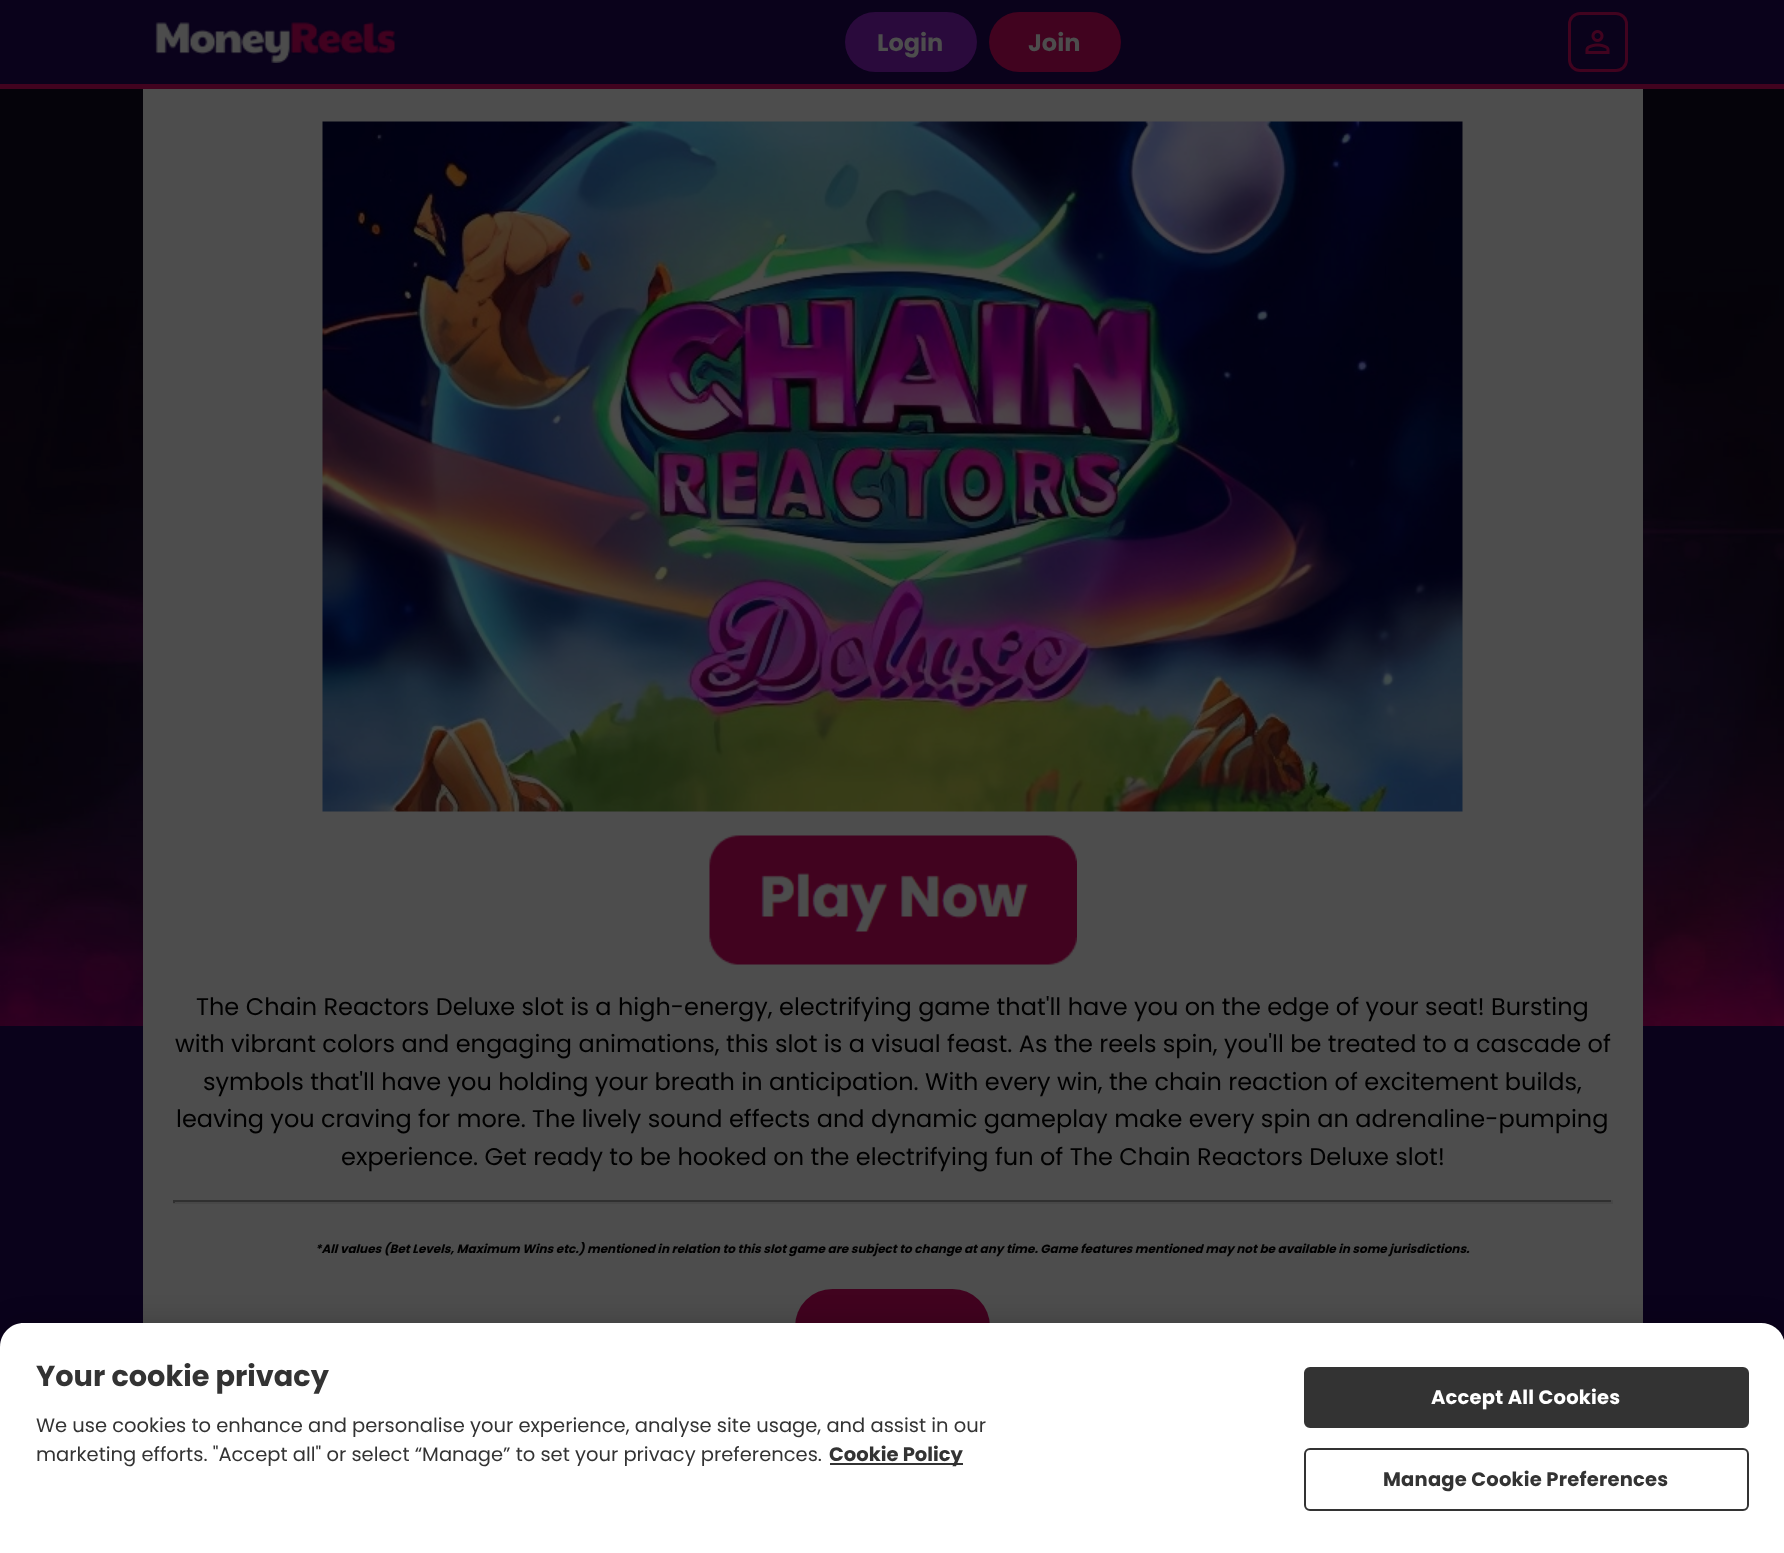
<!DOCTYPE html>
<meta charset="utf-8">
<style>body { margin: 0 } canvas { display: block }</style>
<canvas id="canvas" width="1784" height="1553"></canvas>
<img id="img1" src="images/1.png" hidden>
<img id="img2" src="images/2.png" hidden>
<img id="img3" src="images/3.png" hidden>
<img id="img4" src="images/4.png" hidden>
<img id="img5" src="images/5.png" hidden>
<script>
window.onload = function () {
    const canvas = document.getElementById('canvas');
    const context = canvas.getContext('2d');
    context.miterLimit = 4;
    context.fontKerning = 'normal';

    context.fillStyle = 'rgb(10, 2, 27)';
    context.fillRect(0, 0, 1784, 1553);
    context.drawImage(document.getElementById('img1'), 0, 89, 1784, 937);
    context.fillStyle = 'rgb(65, 3, 31)';
    context.fillRect(0, 84, 1784, 5);
    context.drawImage(document.getElementById('img2'), 155, 22, 240, 41);
    context.fillStyle = 'rgb(42, 10, 60)';
    context.beginPath();
    context.roundRect(845, 12, 132, 60, 30);
    context.fill();
    context.fillStyle = 'rgb(65, 3, 31)';
    context.beginPath();
    context.roundRect(989, 12, 132, 60, 30);
    context.fill();
    context.beginPath();
    context.roundRect(1568, 12, 60, 60, 12);
    context.fill();
    context.fillStyle = 'rgb(10, 2, 27)';
    context.beginPath();
    context.roundRect(1571, 15, 54, 54, 9);
    context.fill();
    context.drawImage(document.getElementById('img3'), 1585, 30, 25, 24);
    context.fillStyle = 'rgb(77, 77, 77)';
    context.fillRect(143, 89, 1500, 1234);
    context.drawImage(document.getElementById('img4'), 322, 121, 1141, 691);
    context.drawImage(document.getElementById('img5'), 709, 835, 368, 130);
    context.fillStyle = 'rgb(48, 48, 48)';
    context.fillRect(173, 1200, 1440, 2);
    context.fillStyle = 'rgb(71, 71, 71)';
    context.fillRect(1611, 1200, 2, 3);
    context.fillRect(173, 1202, 1440, 2);
    context.fillStyle = 'rgb(48, 48, 48)';
    context.fillRect(173, 1200, 2, 3);
    context.fillStyle = 'rgb(65, 3, 31)';
    context.beginPath();
    context.roundRect(795, 1289, 195, 75, 37.5);
    context.fill();
    context.fillStyle = 'rgba(0, 0, 0, 0.2)';
    context.filter = 'blur(13.5px)';
    context.beginPath();
    context.roundRect(0, 1323, 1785, 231, 24);
    context.fill();
    context.filter = 'none';
    context.fillStyle = 'rgb(255, 255, 255)';
    context.beginPath();
    context.moveTo(24, 1323);
    context.lineTo(1761, 1323);
    context.bezierCurveTo(1774.5, 1323, 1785, 1333.5, 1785, 1347);
    context.lineTo(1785, 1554);
    context.lineTo(0, 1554);
    context.lineTo(0, 1347);
    context.bezierCurveTo(0, 1333.5, 10.5, 1323, 24, 1323);
    context.closePath();
    context.fill();
    context.fillStyle = 'rgb(51, 51, 51)';
    context.fillRect(830, 1463, 133, 2);
    context.beginPath();
    context.roundRect(1305, 1368, 443, 59, 5);
    context.fill();
    context.strokeStyle = 'rgb(51, 51, 51)';
    context.lineWidth = 2;
    context.stroke();
    context.beginPath();
    context.roundRect(1305, 1449, 443, 61, 5);
    context.stroke();
    context.font = 'bold 24px Poppins';
    context.fillStyle = 'rgb(77, 77, 77)';
    context.fillText('Login', 877, 51);
    context.fillText('Join', 1028, 51);
    context.font = '24px Poppins';
    context.fillStyle = 'rgb(0, 0, 0)';
    context.fillText('The Chain Reactors Deluxe slot is a high-energy, electrifying game that\'ll have you on the edge of your seat! Bursting', 196, 1015);
    context.fillText('with vibrant colors and engaging animations, this slot is a visual feast. As the reels spin, you\'ll be treated to a cascade of', 175, 1052);
    context.fillText('symbols that\'ll have you holding your breath in anticipation. With every win, the chain reaction of excitement builds,', 203, 1090);
    context.fillText('leaving you craving for more. The lively sound effects and dynamic gameplay make every spin an adrenaline-pumping', 176, 1127);
    context.fillText('experience. Get ready to be hooked on the electrifying fun of The Chain Reactors Deluxe slot!', 341, 1165);
    context.font = 'italic bold 12px Poppins';
    context.fillText('*All values (Bet Levels, Maximum Wins etc.) mentioned in relation to this slot game are subject to change at any time. Game features mentioned may not be available in some jurisdictions.', 315, 1253);
    context.font = 'bold 28.75px Poppins';
    context.fillStyle = 'rgb(51, 51, 51)';
    context.fillText('Your cookie privacy', 36, 1386);
    context.font = '19.5px Poppins';
    context.fillText('We use cookies to enhance and personalise your experience, analyse site usage, and assist in our', 36, 1432);
    context.fillText('marketing efforts. "Accept all" or select “Manage” to set your privacy preferences.', 36, 1461);
    context.font = 'bold 19.5px Poppins';
    context.fillText('Cookie Policy', 829, 1461);
    context.letterSpacing = '0.2px';
    context.fillStyle = 'rgb(255, 255, 255)';
    context.fillText('Accept All Cookies', 1431, 1404);
    context.fillStyle = 'rgb(51, 51, 51)';
    context.fillText('Manage Cookie Preferences', 1383, 1486);
};
</script>
